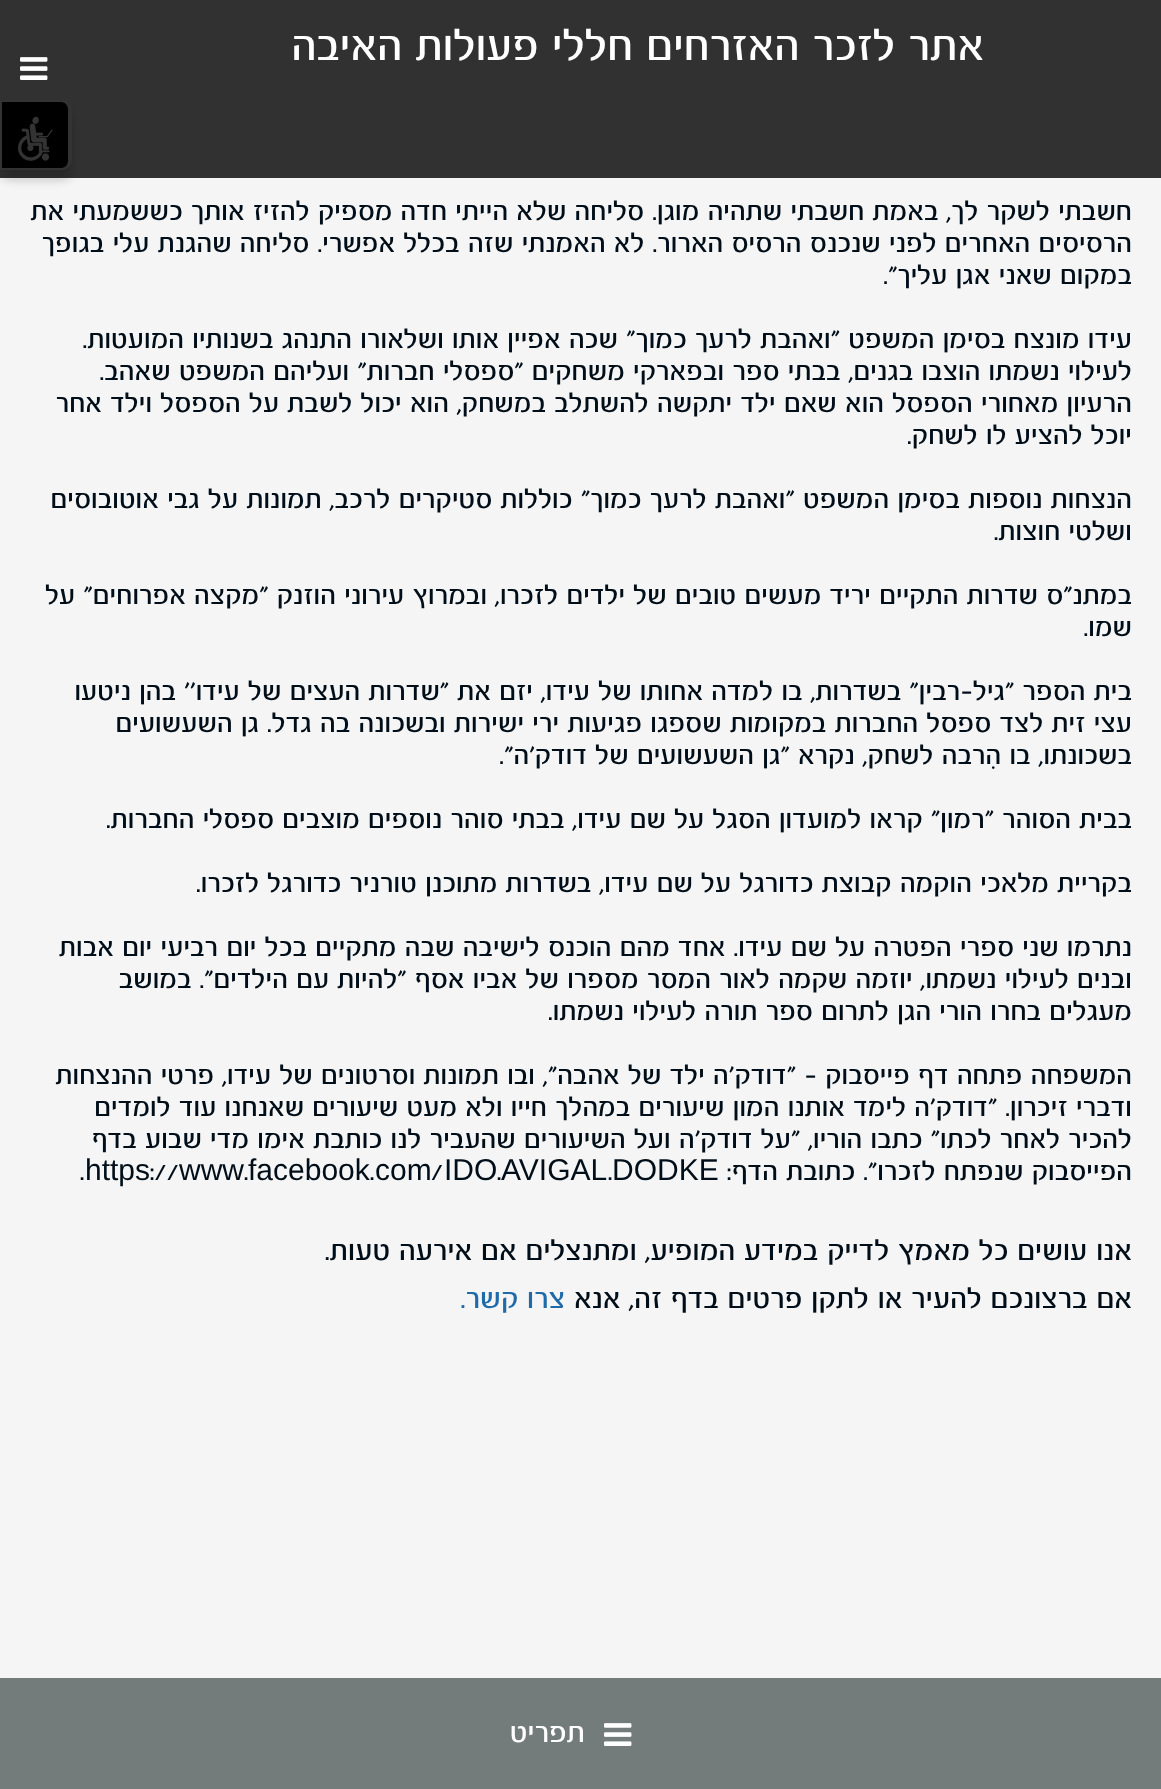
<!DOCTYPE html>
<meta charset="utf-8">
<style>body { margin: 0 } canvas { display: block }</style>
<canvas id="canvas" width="1161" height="1789"></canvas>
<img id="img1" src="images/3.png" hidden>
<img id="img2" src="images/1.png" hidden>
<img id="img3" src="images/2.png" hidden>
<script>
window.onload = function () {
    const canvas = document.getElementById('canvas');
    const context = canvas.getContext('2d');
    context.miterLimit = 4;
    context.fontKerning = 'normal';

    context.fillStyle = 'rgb(245, 245, 245)';
    context.fillRect(0, 0, 1161, 1789);
    context.fillStyle = 'rgba(0, 1, 1, 0.19)';
    context.filter = 'blur(5px)';
    context.beginPath();
    context.roundRect(0, 110, 72, 70, 10);
    context.fill();
    context.filter = 'none';
    context.fillStyle = 'rgb(0, 0, 0)';
    context.beginPath();
    context.moveTo(2, 102);
    context.lineTo(62, 102);
    context.bezierCurveTo(65, 102, 68, 106, 68, 110);
    context.lineTo(68, 160);
    context.bezierCurveTo(68, 164, 65, 168, 62, 168);
    context.lineTo(2, 168);
    context.closePath();
    context.fill();
    context.beginPath();
    context.roundRect(1, 101, 70, 68, [0, 9, 9, 0]);
    context.strokeStyle = 'rgb(255, 255, 255)';
    context.lineWidth = 2;
    context.stroke();
    context.fillStyle = 'rgb(255, 255, 255)';
    context.fillRect(68, 106, 2, 60);
    context.drawImage(document.getElementById('img1'), 18, 116, 35, 45);
    context.fillStyle = 'rgba(0, 0, 0, 0.8)';
    context.fillRect(0, 0, 1161, 178);
    context.drawImage(document.getElementById('img2'), 20, 57, 28, 23);
    context.fillStyle = 'rgb(116, 123, 123)';
    context.fillRect(0, 1678, 1161, 111);
    context.drawImage(document.getElementById('img3'), 604, 1723, 28, 23);
    context.direction = 'rtl';
    context.font = '48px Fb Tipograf';
    context.fillStyle = 'rgb(255, 255, 255)';
    context.fillText('אתר לזכר האזרחים חללי פעולות האיבה', 984, 60);
    context.font = '30px Fb Tipograf';
    context.fillStyle = 'rgb(0, 14, 25)';
    context.fillText('חשבתי לשקר לך, באמת חשבתי שתהיה מוגן. סליחה שלא הייתי חדה מספיק להזיז אותך כששמעתי את', 1132, 220);
    context.fillText('הרסיסים האחרים לפני שנכנס הרסיס הארור. לא האמנתי שזה בכלל אפשרי. סליחה שהגנת עלי בגופך', 1132, 252);
    context.fillText('במקום שאני אגן עליך".', 1132, 284);
    context.fillText('עידו מונצח בסימן המשפט "ואהבת לרעך כמוך" שכה אפיין אותו ושלאורו התנהג בשנותיו המועטות.', 1132, 348);
    context.fillText('לעילוי נשמתו הוצבו בגנים, בבתי ספר ובפארקי משחקים "ספסלי חברות" ועליהם המשפט שאהב.', 1132, 380);
    context.fillText('הרעיון מאחורי הספסל הוא שאם ילד יתקשה להשתלב במשחק, הוא יכול לשבת על הספסל וילד אחר', 1132, 412);
    context.fillText('יוכל להציע לו לשחק.', 1132, 444);
    context.fillText('הנצחות נוספות בסימן המשפט "ואהבת לרעך כמוך" כוללות סטיקרים לרכב, תמונות על גבי אוטובוסים', 1132, 508);
    context.fillText('ושלטי חוצות.', 1132, 540);
    context.fillText('במתנ"ס שדרות התקיים יריד מעשים טובים של ילדים לזכרו, ובמרוץ עירוני הוזנק "מקצה אפרוחים" על', 1132, 604);
    context.fillText('שמו.', 1132, 636);
    context.fillText('בית הספר "גיל-רבין" בשדרות, בו למדה אחותו של עידו, יזם את "שדרות העצים של עידו\'\' בהן ניטעו', 1132, 700);
    context.fillText('עצי זית לצד ספסל החברות במקומות שספגו פגיעות ירי ישירות ובשכונה בה גדל. גן השעשועים', 1132, 732);
    context.fillText('בשכונתו, בו הִרבה לשחק, נקרא "גן השעשועים של דודק\'ה".', 1132, 764);
    context.fillText('בבית הסוהר "רמון" קראו למועדון הסגל על שם עידו, בבתי סוהר נוספים מוצבים ספסלי החברות.', 1132, 828);
    context.fillText('בקריית מלאכי הוקמה קבוצת כדורגל על שם עידו, בשדרות מתוכנן טורניר כדורגל לזכרו.', 1132, 892);
    context.fillText('נתרמו שני ספרי הפטרה על שם עידו. אחד מהם הוכנס לישיבה שבה מתקיים בכל יום רביעי יום אבות', 1132, 956);
    context.fillText('ובנים לעילוי נשמתו, יוזמה שקמה לאור המסר מספרו של אביו אסף "להיות עם הילדים". במושב', 1132, 988);
    context.fillText('מעגלים בחרו הורי הגן לתרום ספר תורה לעילוי נשמתו.', 1132, 1020);
    context.fillText('המשפחה פתחה דף פייסבוק – "דודק\'ה ילד של אהבה", ובו תמונות וסרטונים של עידו, פרטי ההנצחות', 1132, 1084);
    context.fillText('ודברי זיכרון. "דודק\'ה לימד אותנו המון שיעורים במהלך חייו ולא מעט שיעורים שאנחנו עוד לומדים', 1132, 1116);
    context.fillText('להכיר לאחר לכתו" כתבו הוריו, "על דודק\'ה ועל השיעורים שהעביר לנו כותבת אימו מדי שבוע בדף', 1132, 1148);
    context.fillText('הפייסבוק שנפתח לזכרו". כתובת הדף:', 1132, 1180);
    context.direction = 'ltr';
    context.font = '30px Liberation Sans';
    context.fillText('DODKE', 612, 1180);
    context.font = '30px Fb Tipograf';
    context.fillText('.', 608, 1180);
    context.font = '30px Liberation Sans';
    context.fillText('AVIGAL', 501, 1180);
    context.font = '30px Fb Tipograf';
    context.fillText('.', 497, 1180);
    context.font = '30px Liberation Sans';
    context.fillText('IDO', 444, 1180);
    context.font = '30px Fb Tipograf';
    context.fillText('/', 431, 1180);
    context.font = '30px Liberation Sans';
    context.fillText('com', 375, 1180);
    context.fillText('facebook', 248, 1180);
    context.font = '30px Fb Tipograf';
    context.fillText('.', 370, 1180);
    context.fillText('.', 244, 1180);
    context.font = '30px Liberation Sans';
    context.fillText('www', 179, 1180);
    context.font = '30px Fb Tipograf';
    context.fillText('://', 150, 1180);
    context.font = '30px Liberation Sans';
    context.fillText('https', 85, 1180);
    context.font = '30px Fb Tipograf';
    context.fillText('.', 80, 1180);
    context.direction = 'rtl';
    context.font = '32px Fb Tipograf';
    context.fillText('אנו עושים כל מאמץ לדייק במידע המופיע, ומתנצלים אם אירעה טעות.', 1132, 1260);
    context.fillText('אם ברצונכם להעיר או לתקן פרטים בדף זה, אנא', 1132, 1308);
    context.fillStyle = 'rgb(31, 106, 169)';
    context.fillText('צרו קשר.', 565, 1308);
    context.fillStyle = 'rgb(255, 255, 255)';
    context.fillText('תפריט', 585, 1742);
};
</script>
